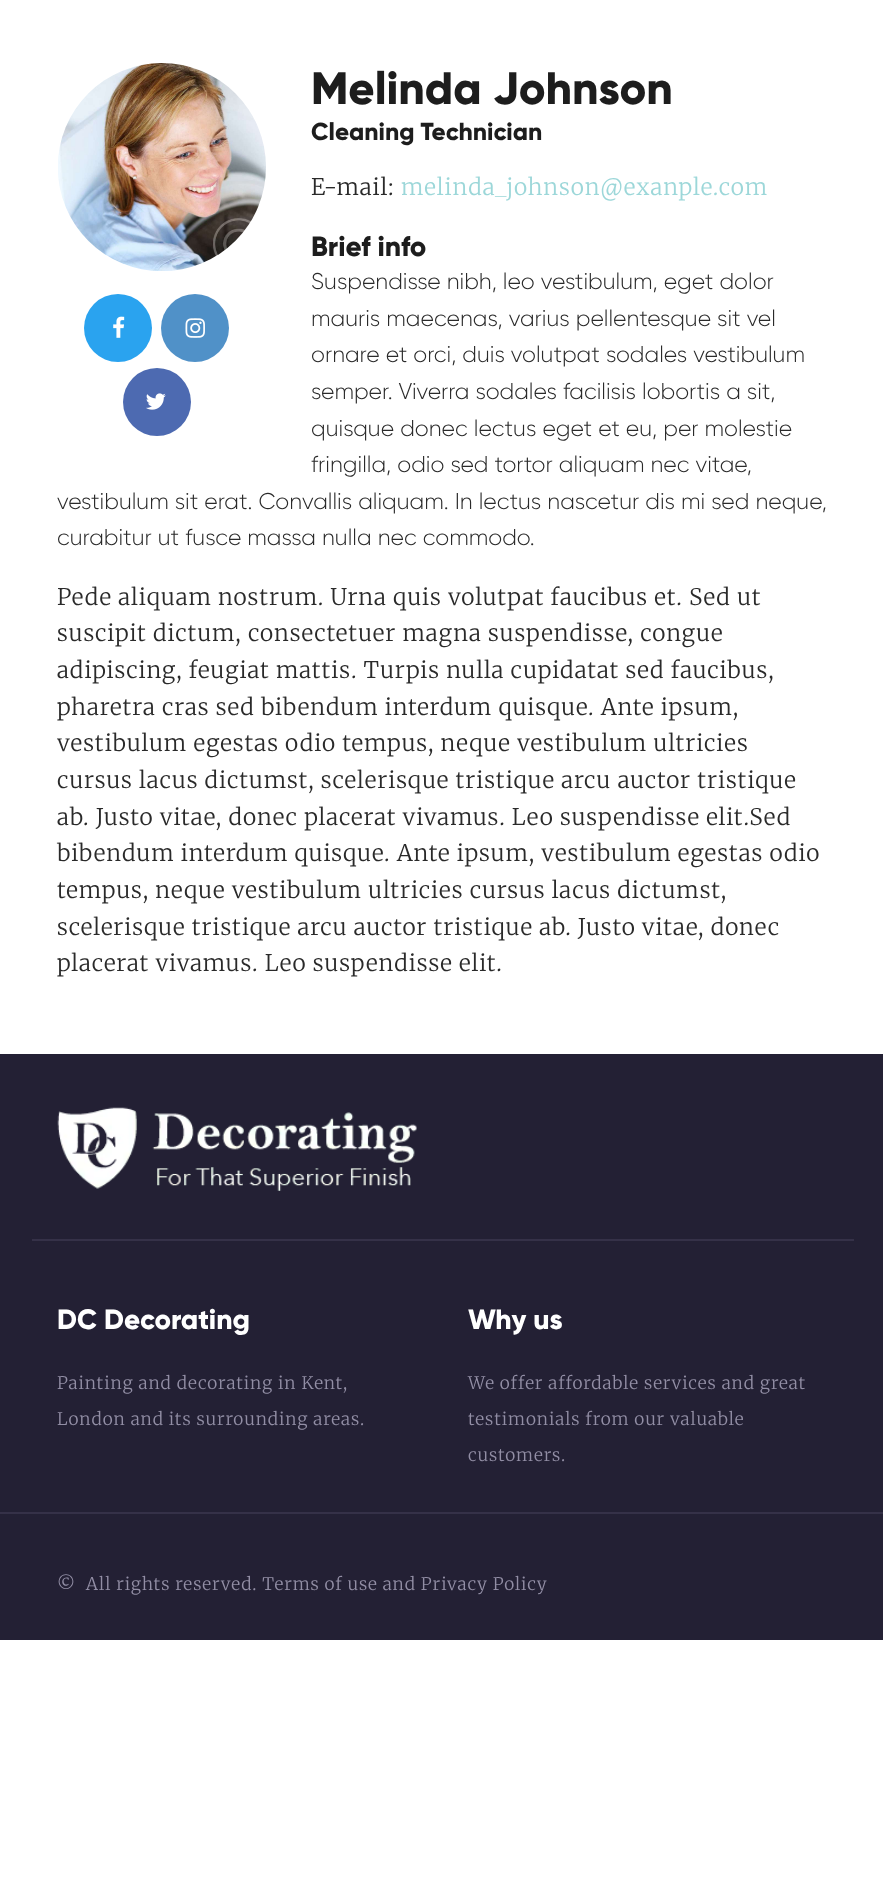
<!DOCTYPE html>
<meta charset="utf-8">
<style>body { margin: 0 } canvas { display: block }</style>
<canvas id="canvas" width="883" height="1891"></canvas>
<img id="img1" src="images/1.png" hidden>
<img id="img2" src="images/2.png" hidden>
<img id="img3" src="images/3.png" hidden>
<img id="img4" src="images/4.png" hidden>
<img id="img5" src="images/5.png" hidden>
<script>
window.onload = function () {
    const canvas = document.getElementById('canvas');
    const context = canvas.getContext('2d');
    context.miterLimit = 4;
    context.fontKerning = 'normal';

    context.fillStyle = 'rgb(255, 255, 255)';
    context.fillRect(0, 0, 883, 1891);
    context.drawImage(document.getElementById('img1'), 58, 63, 208, 208);
    context.fillStyle = 'rgb(42, 163, 239)';
    context.beginPath();
    context.arc(118, 328, 34, 0, 2 * Math.PI);
    context.fill();
    context.drawImage(document.getElementById('img2'), 113, 316, 12, 22);
    context.fillStyle = 'rgb(80, 145, 200)';
    context.beginPath();
    context.arc(195, 328, 34, 0, 2 * Math.PI);
    context.fill();
    context.drawImage(document.getElementById('img3'), 185, 318, 20, 20);
    context.fillStyle = 'rgb(77, 106, 177)';
    context.beginPath();
    context.arc(157, 402, 34, 0, 2 * Math.PI);
    context.fill();
    context.drawImage(document.getElementById('img4'), 146, 393, 20, 17);
    context.fillStyle = 'rgb(35, 32, 52)';
    context.fillRect(0, 1054, 883, 458);
    context.fillStyle = 'rgb(53, 49, 72)';
    context.fillRect(0, 1512, 883, 2);
    context.drawImage(document.getElementById('img5'), 57, 1107, 360, 84);
    context.fillRect(32, 1239, 822, 2);
    context.fillStyle = 'rgb(35, 32, 52)';
    context.fillRect(0, 1514, 883, 126);
    context.font = '800 45.5px Gilroy';
    context.fillStyle = 'rgb(29, 29, 29)';
    context.fillText('Melinda Johnson', 311, 104);
    context.font = '800 24.5px Gilroy';
    context.fillText('Cleaning Technician', 311, 140);
    context.letterSpacing = '0.88px';
    context.font = '300 22.75px Merriweather';
    context.fillStyle = 'rgb(42, 42, 42)';
    context.fillText('E-mail:', 311, 195);
    context.fillStyle = 'rgb(156, 215, 217)';
    context.fillText('melinda_johnson@exanple.com', 401, 195);
    context.letterSpacing = '0px';
    context.font = '800 28px Gilroy';
    context.fillStyle = 'rgb(29, 29, 29)';
    context.fillText('Brief info', 311, 256);
    context.font = '300 22.75px Gilroy';
    context.fillStyle = 'rgb(42, 42, 42)';
    context.fillText('Suspendisse nibh, leo vestibulum, eget dolor', 311, 289);
    context.fillText('mauris maecenas, varius pellentesque sit vel', 311, 326);
    context.fillText('ornare et orci, duis volutpat sodales vestibulum', 311, 362);
    context.fillText('semper. Viverra sodales facilisis lobortis a sit,', 311, 399);
    context.fillText('quisque donec lectus eget et eu, per molestie', 311, 436);
    context.fillText('fringilla, odio sed tortor aliquam nec vitae,', 311, 472);
    context.fillText('vestibulum sit erat. Convallis aliquam. In lectus nascetur dis mi sed neque,', 57, 509);
    context.fillText('curabitur ut fusce massa nulla nec commodo.', 57, 545);
    context.letterSpacing = '0.88px';
    context.font = '300 22.75px Merriweather';
    context.fillText('Pede aliquam nostrum. Urna quis volutpat faucibus et. Sed ut', 57, 605);
    context.fillText('suscipit dictum, consectetuer magna suspendisse, congue', 57, 641);
    context.fillText('adipiscing, feugiat mattis. Turpis nulla cupidatat sed faucibus,', 57, 678);
    context.fillText('pharetra cras sed bibendum interdum quisque. Ante ipsum,', 57, 715);
    context.fillText('vestibulum egestas odio tempus, neque vestibulum ultricies', 57, 751);
    context.fillText('cursus lacus dictumst, scelerisque tristique arcu auctor tristique', 57, 788);
    context.fillText('ab. Justo vitae, donec placerat vivamus. Leo suspendisse elit.Sed', 57, 825);
    context.fillText('bibendum interdum quisque. Ante ipsum, vestibulum egestas odio', 57, 861);
    context.fillText('tempus, neque vestibulum ultricies cursus lacus dictumst,', 57, 898);
    context.fillText('scelerisque tristique arcu auctor tristique ab. Justo vitae, donec', 57, 935);
    context.fillText('placerat vivamus. Leo suspendisse elit.', 57, 971);
    context.letterSpacing = '0px';
    context.font = '800 28px Gilroy';
    context.fillStyle = 'rgb(255, 255, 255)';
    context.fillText('DC Decorating', 57, 1329);
    context.letterSpacing = '0.88px';
    context.font = '300 17.3px Merriweather';
    context.fillStyle = 'rgb(146, 142, 165)';
    context.fillText('Painting and decorating in Kent,', 57, 1389);
    context.fillText('London and its surrounding areas.', 57, 1425);
    context.letterSpacing = '0px';
    context.font = '800 28px Gilroy';
    context.fillStyle = 'rgb(255, 255, 255)';
    context.fillText('Why us', 468, 1329);
    context.letterSpacing = '0.88px';
    context.font = '300 17.3px Merriweather';
    context.fillStyle = 'rgb(146, 142, 165)';
    context.fillText('We offer affordable services and great', 468, 1389);
    context.fillText('testimonials from our valuable', 468, 1425);
    context.fillText('customers.', 468, 1461);
    context.fillText('©  All rights reserved. Terms of use and Privacy Policy', 57, 1590);
};
</script>
